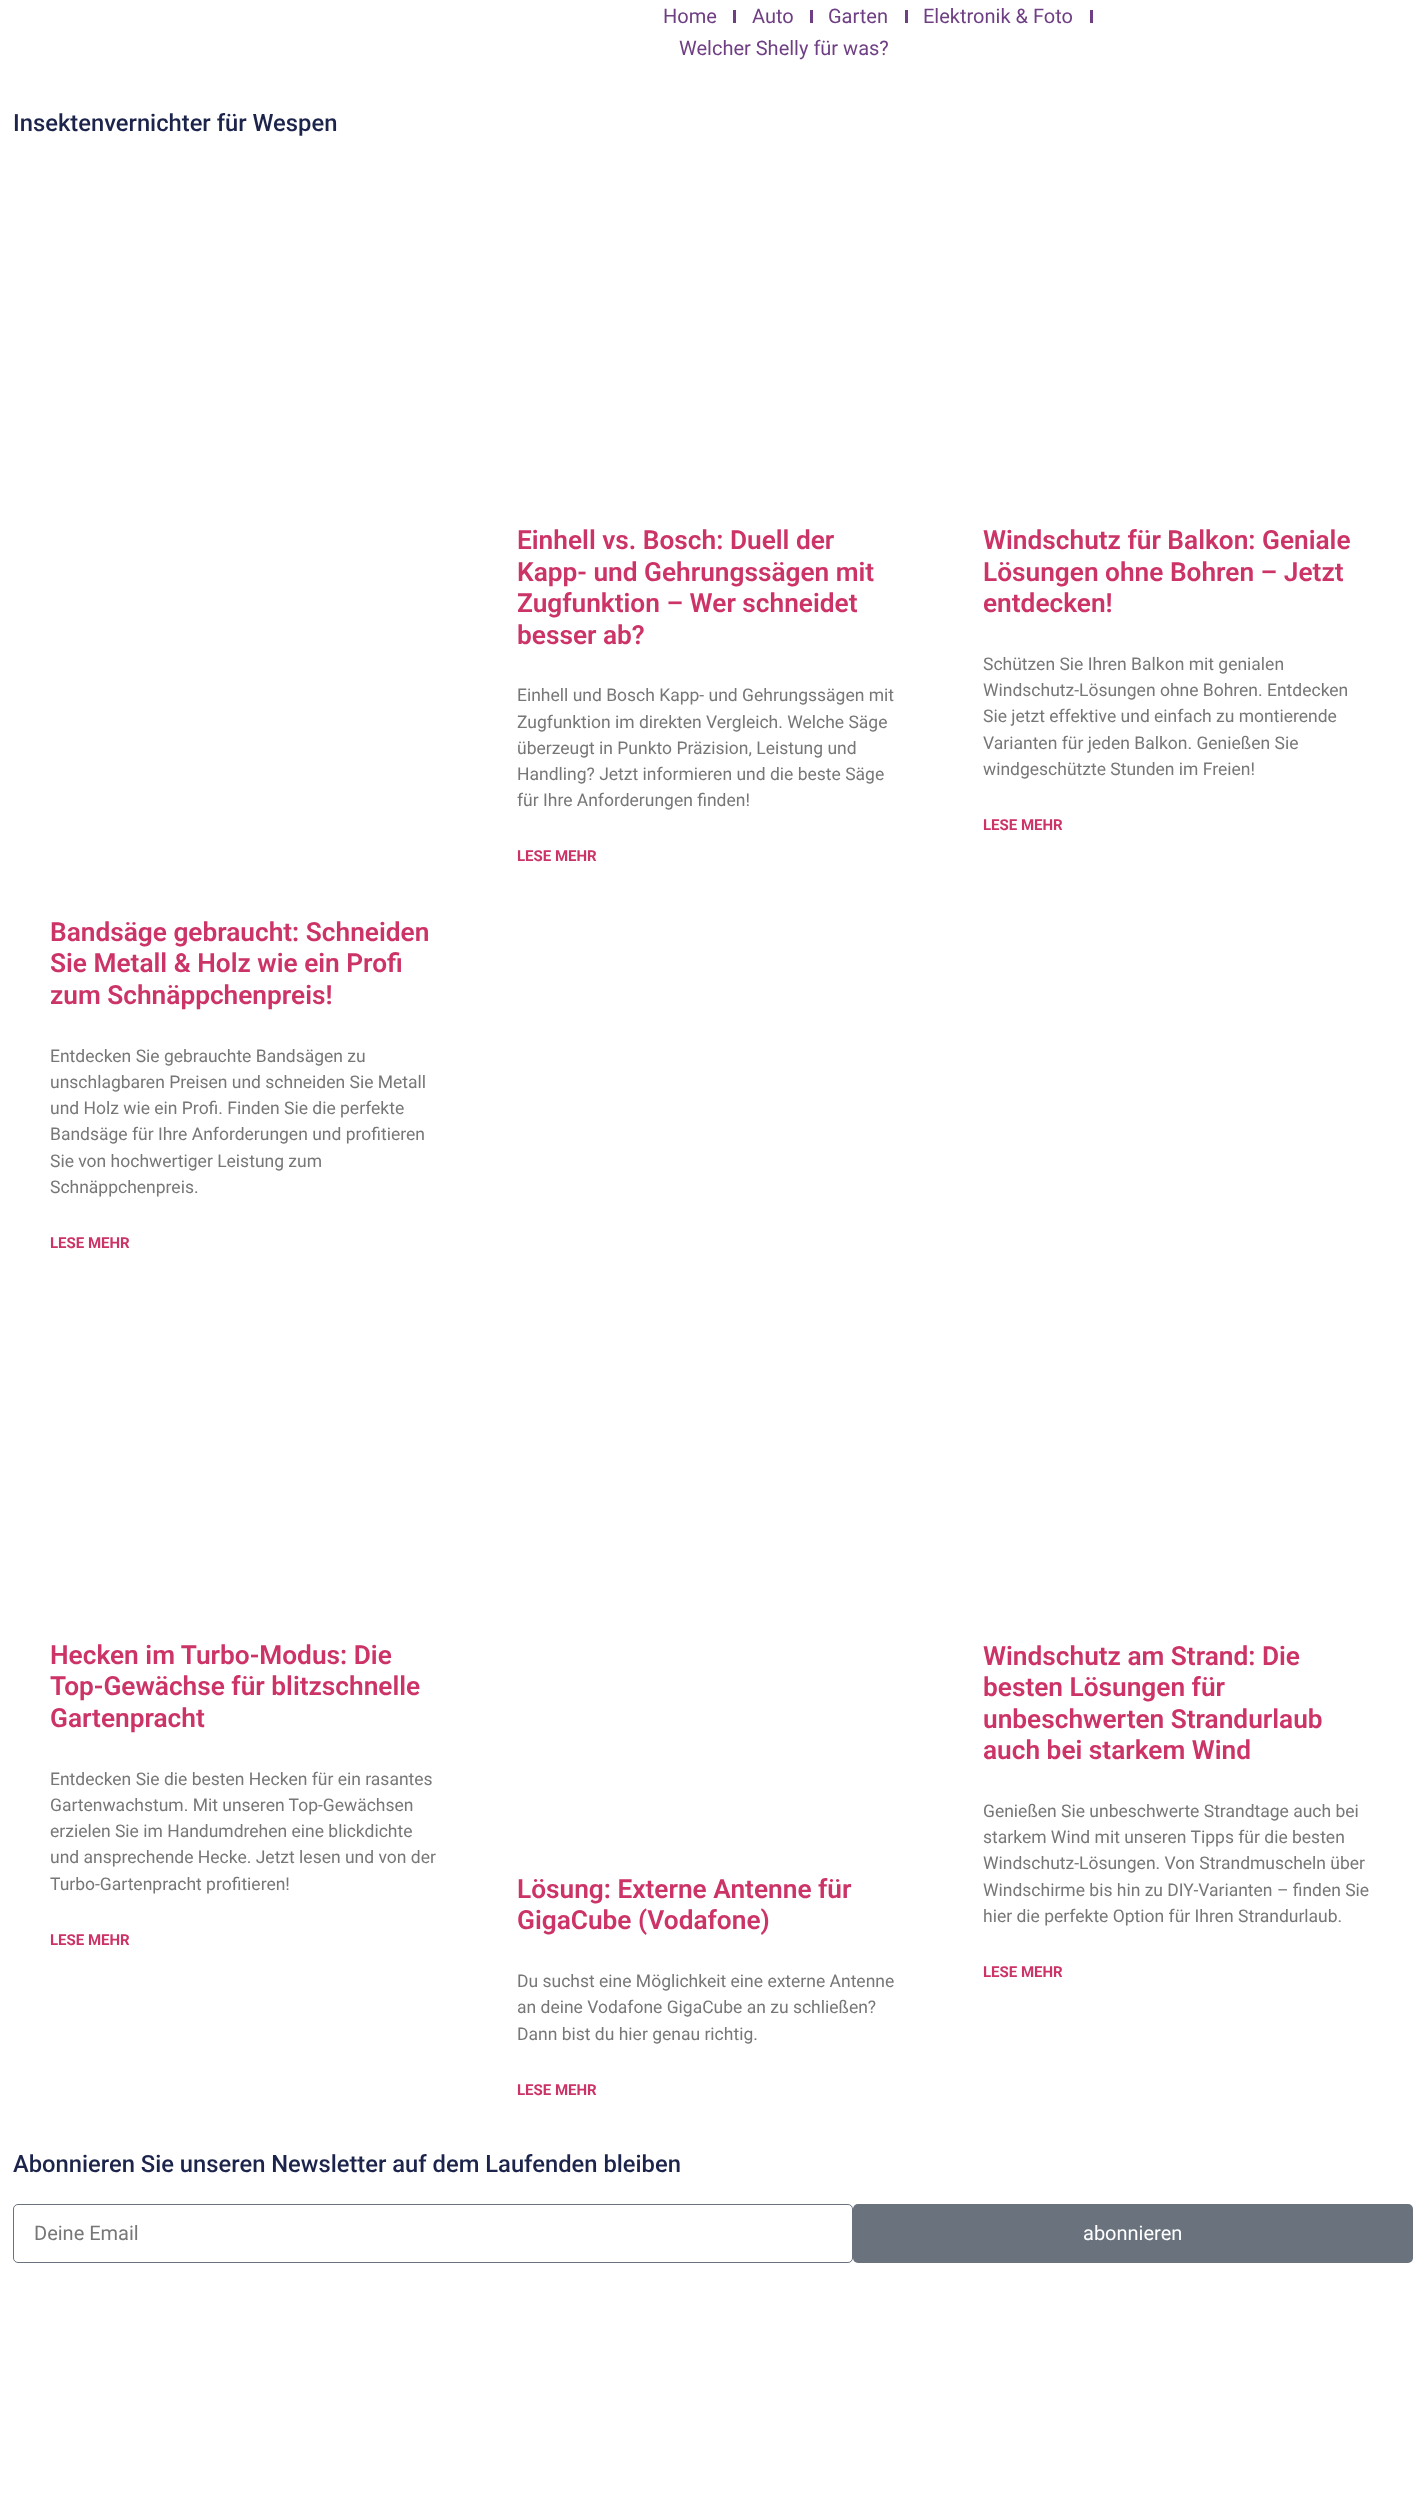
<!DOCTYPE html>
<meta charset="utf-8">
<style>body { margin: 0 } canvas { display: block }</style>
<canvas id="canvas" width="1425" height="2510"></canvas>
<script>
window.onload = function () {
    const canvas = document.getElementById('canvas');
    const context = canvas.getContext('2d');
    context.miterLimit = 4;
    context.fontKerning = 'normal';

    context.fillStyle = 'rgb(255, 255, 255)';
    context.fillRect(0, 0, 1425, 2510);
    context.fillStyle = 'rgb(111, 63, 132)';
    context.fillRect(733, 10, 3, 13);
    context.fillRect(810, 10, 3, 13);
    context.fillRect(905, 10, 3, 13);
    context.fillRect(1090, 10, 3, 13);
    context.beginPath();
    context.roundRect(13.5, 2204.5, 839, 58, 4.5);
    context.strokeStyle = 'rgb(105, 114, 125)';
    context.stroke();
    context.fillStyle = 'rgb(105, 114, 125)';
    context.beginPath();
    context.roundRect(853, 2204, 560, 59, 5);
    context.fill();
    context.font = '20px Roboto';
    context.fillStyle = 'rgb(111, 63, 132)';
    context.fillText('Home', 663, 23);
    context.fillText('Auto', 752, 23);
    context.fillText('Garten', 828, 23);
    context.fillText('Elektronik & Foto', 923, 23);
    context.fillText('Welcher Shelly für was?', 679, 55);
    context.font = '500 23.75px Roboto';
    context.fillStyle = 'rgb(28, 36, 75)';
    context.fillText('Insektenvernichter für Wespen', 13, 131);
    context.font = '600 26.25px Roboto';
    context.fillStyle = 'rgb(204, 51, 102)';
    context.fillText('Einhell vs. Bosch: Duell der', 517, 549);
    context.fillText('Kapp- und Gehrungssägen mit', 517, 581);
    context.fillText('Zugfunktion – Wer schneidet', 517, 612);
    context.fillText('besser ab?', 517, 644);
    context.font = '17.5px Roboto';
    context.fillStyle = 'rgb(119, 119, 119)';
    context.fillText('Einhell und Bosch Kapp- und Gehrungssägen mit', 517, 701);
    context.fillText('Zugfunktion im direkten Vergleich. Welche Säge', 517, 728);
    context.fillText('überzeugt in Punkto Präzision, Leistung und', 517, 754);
    context.fillText('Handling? Jetzt informieren und die beste Säge', 517, 780);
    context.fillText('für Ihre Anforderungen finden!', 517, 806);
    context.font = 'bold 15px Roboto';
    context.fillStyle = 'rgb(204, 51, 102)';
    context.fillText('LESE MEHR', 517, 861);
    context.font = '600 26.25px Roboto';
    context.fillText('Windschutz für Balkon: Geniale', 983, 549);
    context.fillText('Lösungen ohne Bohren – Jetzt', 983, 581);
    context.fillText('entdecken!', 983, 612);
    context.font = '17.5px Roboto';
    context.fillStyle = 'rgb(119, 119, 119)';
    context.fillText('Schützen Sie Ihren Balkon mit genialen', 983, 670);
    context.fillText('Windschutz-Lösungen ohne Bohren. Entdecken', 983, 696);
    context.fillText('Sie jetzt effektive und einfach zu montierende', 983, 722);
    context.fillText('Varianten für jeden Balkon. Genießen Sie', 983, 749);
    context.fillText('windgeschützte Stunden im Freien!', 983, 775);
    context.font = 'bold 15px Roboto';
    context.fillStyle = 'rgb(204, 51, 102)';
    context.fillText('LESE MEHR', 983, 830);
    context.font = '600 26.25px Roboto';
    context.fillText('Bandsäge gebraucht: Schneiden', 50, 941);
    context.fillText('Sie Metall & Holz wie ein Profi', 50, 972);
    context.fillText('zum Schnäppchenpreis!', 50, 1004);
    context.font = '17.5px Roboto';
    context.fillStyle = 'rgb(119, 119, 119)';
    context.fillText('Entdecken Sie gebrauchte Bandsägen zu', 50, 1062);
    context.fillText('unschlagbaren Preisen und schneiden Sie Metall', 50, 1088);
    context.fillText('und Holz wie ein Profi. Finden Sie die perfekte', 50, 1114);
    context.fillText('Bandsäge für Ihre Anforderungen und profitieren', 50, 1140);
    context.fillText('Sie von hochwertiger Leistung zum', 50, 1167);
    context.fillText('Schnäppchenpreis.', 50, 1193);
    context.font = 'bold 15px Roboto';
    context.fillStyle = 'rgb(204, 51, 102)';
    context.fillText('LESE MEHR', 50, 1248);
    context.font = '600 26.25px Roboto';
    context.fillText('Hecken im Turbo-Modus: Die', 50, 1664);
    context.fillText('Top-Gewächse für blitzschnelle', 50, 1695);
    context.fillText('Gartenpracht', 50, 1727);
    context.font = '17.5px Roboto';
    context.fillStyle = 'rgb(119, 119, 119)';
    context.fillText('Entdecken Sie die besten Hecken für ein rasantes', 50, 1785);
    context.fillText('Gartenwachstum. Mit unseren Top-Gewächsen', 50, 1811);
    context.fillText('erzielen Sie im Handumdrehen eine blickdichte', 50, 1837);
    context.fillText('und ansprechende Hecke. Jetzt lesen und von der', 50, 1863);
    context.fillText('Turbo-Gartenpracht profitieren!', 50, 1890);
    context.font = 'bold 15px Roboto';
    context.fillStyle = 'rgb(204, 51, 102)';
    context.fillText('LESE MEHR', 50, 1945);
    context.font = '600 26.25px Roboto';
    context.fillText('Lösung: Externe Antenne für', 517, 1898);
    context.fillText('GigaCube (Vodafone)', 517, 1929);
    context.font = '17.5px Roboto';
    context.fillStyle = 'rgb(119, 119, 119)';
    context.fillText('Du suchst eine Möglichkeit eine externe Antenne', 517, 1987);
    context.fillText('an deine Vodafone GigaCube an zu schließen?', 517, 2013);
    context.fillText('Dann bist du hier genau richtig.', 517, 2040);
    context.font = 'bold 15px Roboto';
    context.fillStyle = 'rgb(204, 51, 102)';
    context.fillText('LESE MEHR', 517, 2095);
    context.font = '600 26.25px Roboto';
    context.fillText('Windschutz am Strand: Die', 983, 1665);
    context.fillText('besten Lösungen für', 983, 1696);
    context.fillText('unbeschwerten Strandurlaub', 983, 1728);
    context.fillText('auch bei starkem Wind', 983, 1759);
    context.font = '17.5px Roboto';
    context.fillStyle = 'rgb(119, 119, 119)';
    context.fillText('Genießen Sie unbeschwerte Strandtage auch bei', 983, 1817);
    context.fillText('starkem Wind mit unseren Tipps für die besten', 983, 1843);
    context.fillText('Windschutz-Lösungen. Von Strandmuscheln über', 983, 1869);
    context.fillText('Windschirme bis hin zu DIY-Varianten – finden Sie', 983, 1896);
    context.fillText('hier die perfekte Option für Ihren Strandurlaub.', 983, 1922);
    context.font = 'bold 15px Roboto';
    context.fillStyle = 'rgb(204, 51, 102)';
    context.fillText('LESE MEHR', 983, 1977);
    context.font = '500 23.75px Roboto';
    context.fillStyle = 'rgb(28, 36, 75)';
    context.fillText('Abonnieren Sie unseren Newsletter auf dem Laufenden bleiben', 13, 2172);
    context.font = '20px Roboto';
    context.fillStyle = 'rgb(119, 119, 119)';
    context.fillText('Deine Email', 34, 2240);
    context.fillStyle = 'rgb(255, 255, 255)';
    context.fillText('abonnieren', 1083, 2240);
};
</script>
